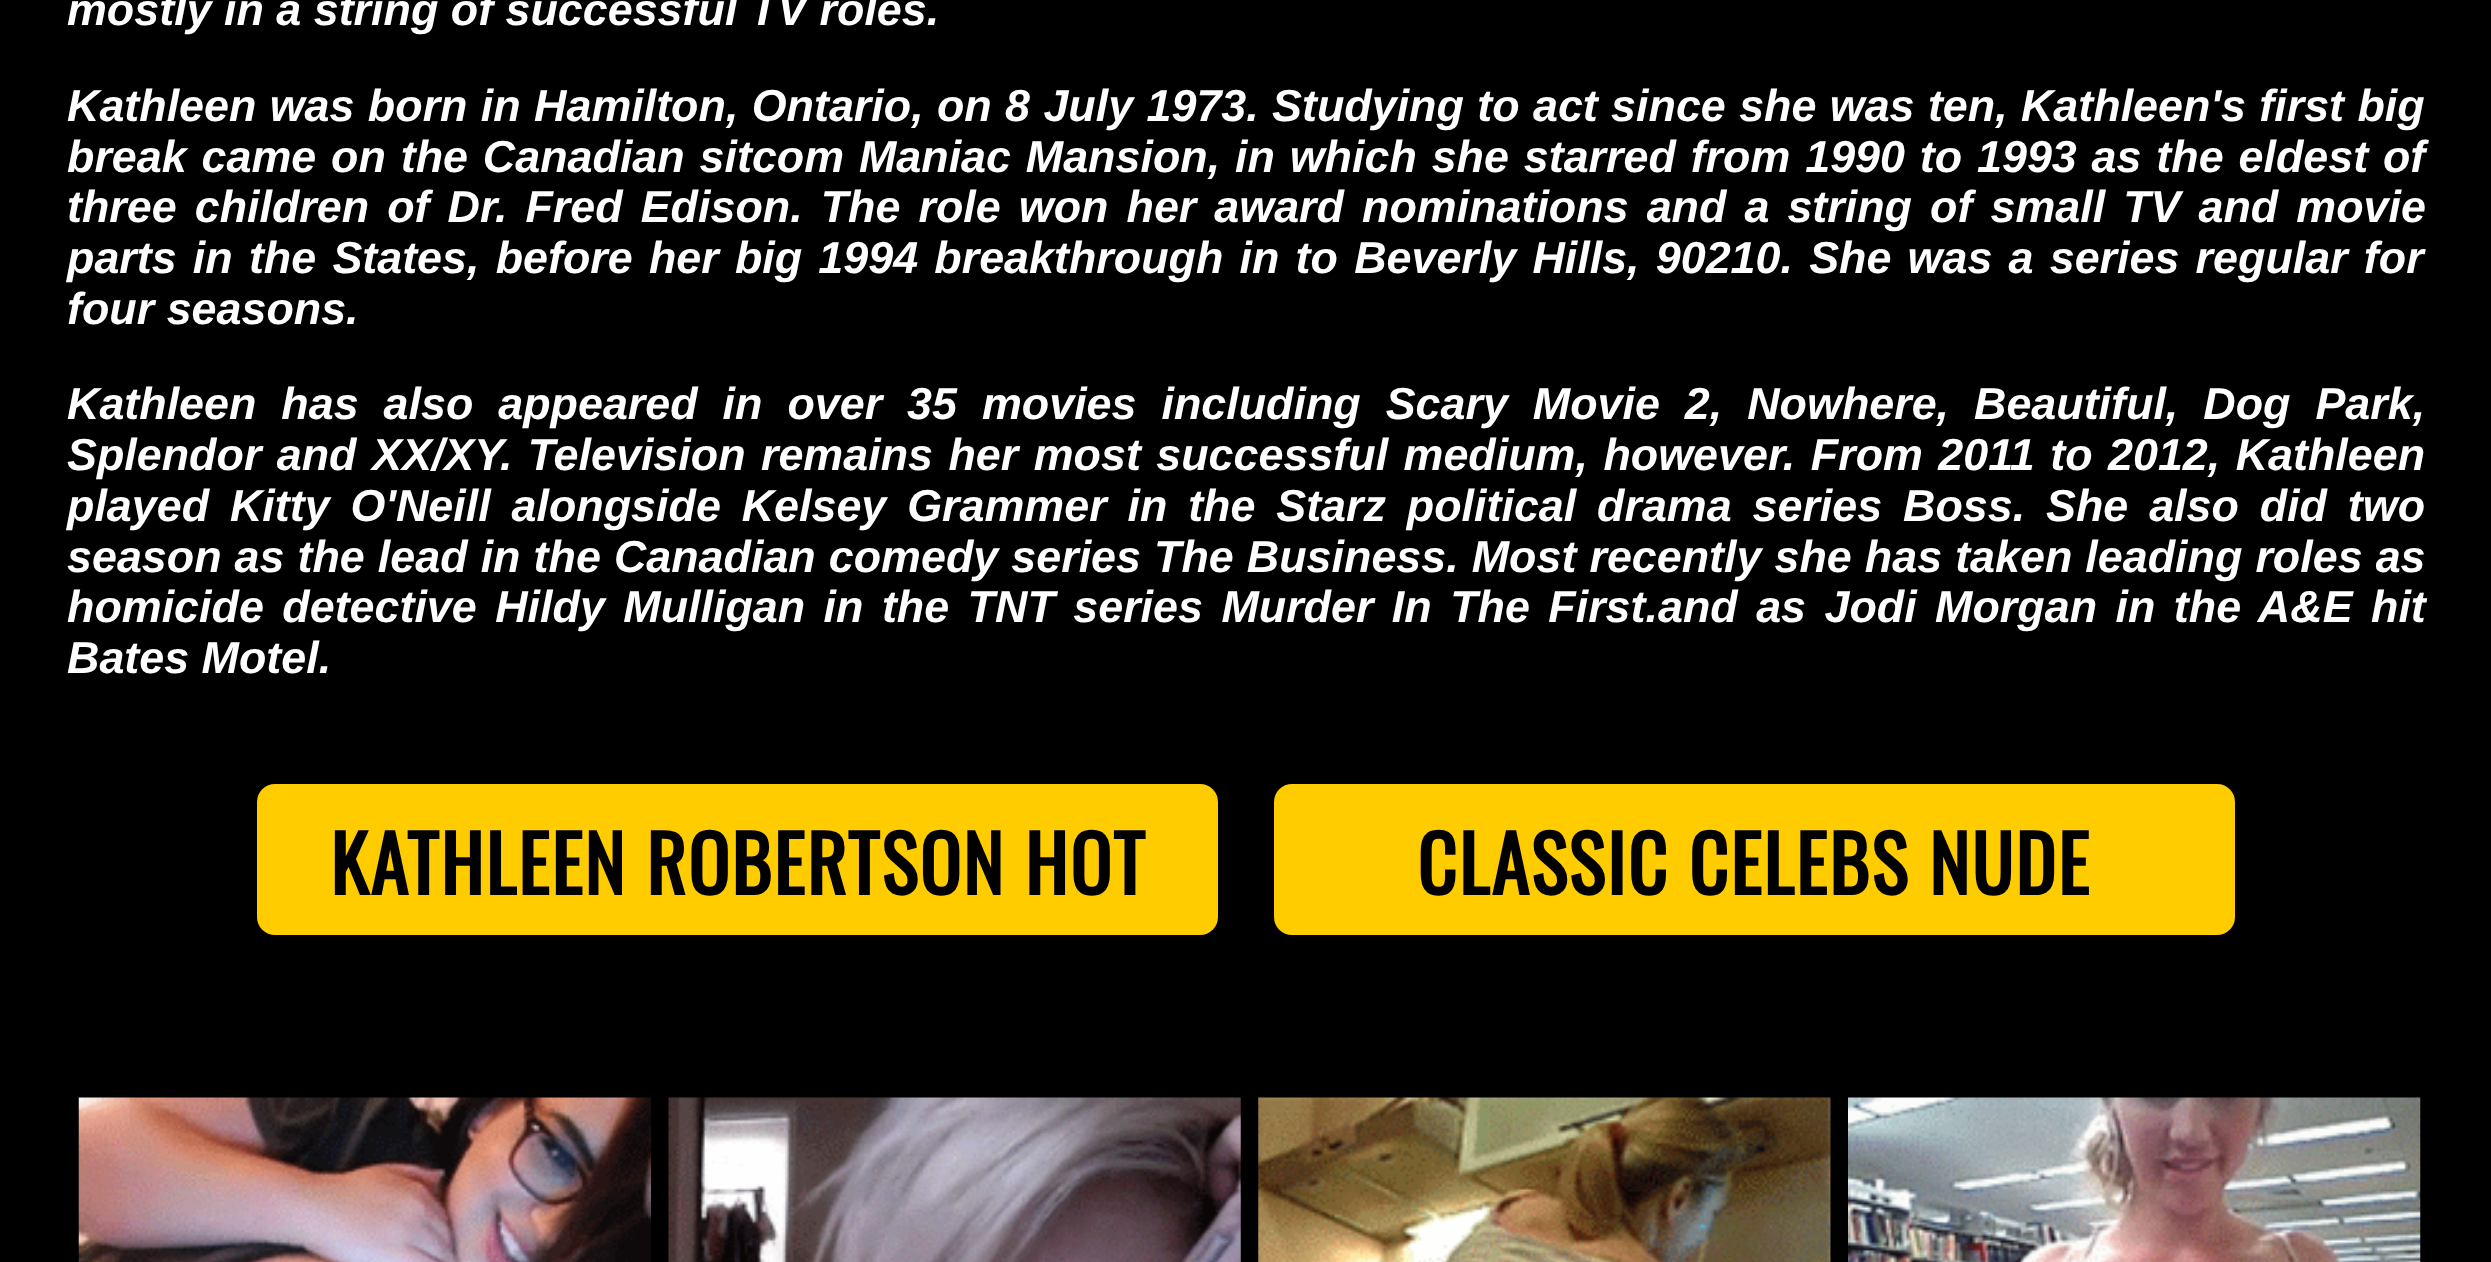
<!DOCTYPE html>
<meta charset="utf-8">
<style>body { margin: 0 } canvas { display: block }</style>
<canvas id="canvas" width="2491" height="1262"></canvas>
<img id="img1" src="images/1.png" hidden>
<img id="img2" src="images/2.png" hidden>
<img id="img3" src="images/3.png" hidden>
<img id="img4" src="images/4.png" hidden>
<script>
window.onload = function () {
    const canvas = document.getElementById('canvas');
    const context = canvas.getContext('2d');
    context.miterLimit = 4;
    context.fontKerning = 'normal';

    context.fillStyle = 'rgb(0, 0, 0)';
    context.fillRect(0, 0, 2491, 1262);
    context.fillStyle = 'rgb(255, 204, 0)';
    context.beginPath();
    context.roundRect(257, 784, 961, 151, 18);
    context.fill();
    context.beginPath();
    context.roundRect(1274, 784, 961, 151, 18);
    context.fill();
    context.drawImage(document.getElementById('img1'), 78, 1097, 573, 165);
    context.drawImage(document.getElementById('img2'), 668, 1097, 573, 165);
    context.drawImage(document.getElementById('img3'), 1258, 1097, 573, 165);
    context.drawImage(document.getElementById('img4'), 1848, 1097, 573, 165);
    context.font = 'italic bold 44.85px Liberation Sans';
    context.fillStyle = 'rgb(255, 255, 255)';
    context.fillText('mostly in a string of successful TV roles.', 67, 25);
    context.wordSpacing = '0.9px';
    context.fillText('Kathleen was born in Hamilton, Ontario, on 8 July 1973. Studying to act since she was ten, Kathleen\'s first big', 67, 121);
    context.wordSpacing = '2.4px';
    context.fillText('break came on the Canadian sitcom Maniac Mansion, in which she starred from 1990 to 1993 as the eldest of', 67, 172);
    context.wordSpacing = '5.6px';
    context.fillText('three children of Dr. Fred Edison. The role won her award nominations and a string of small TV and movie', 67, 222);
    context.wordSpacing = '3.75px';
    context.fillText('parts in the States, before her big 1994 breakthrough in to Beverly Hills, 90210. She was a series regular for', 67, 273);
    context.wordSpacing = '0px';
    context.fillText('four seasons.', 67, 324);
    context.wordSpacing = '12.5px';
    context.fillText('Kathleen has also appeared in over 35 movies including Scary Movie 2, Nowhere, Beautiful, Dog Park,', 67, 419);
    context.wordSpacing = '3px';
    context.fillText('Splendor and XX/XY. Television remains her most successful medium, however. From 2011 to 2012, Kathleen', 67, 470);
    context.wordSpacing = '8.4px';
    context.fillText('played Kitty O\'Neill alongside Kelsey Grammer in the Starz political drama series Boss. She also did two', 67, 521);
    context.wordSpacing = '0.6px';
    context.fillText('season as the lead in the Canadian comedy series The Business. Most recently she has taken leading roles as', 67, 572);
    context.wordSpacing = '6px';
    context.fillText('homicide detective Hildy Mulligan in the TNT series Murder In The First.and as Jodi Morgan in the A&E hit', 67, 622);
    context.wordSpacing = '0px';
    context.fillText('Bates Motel.', 67, 673);
    context.letterSpacing = '1.75px';
    context.font = 'bold 77.25px Oswald';
    context.fillStyle = 'rgb(0, 0, 0)';
    context.fillText('KATHLEEN ROBERTSON HOT', 330, 895);
    context.fillText('CLASSIC CELEBS NUDE', 1417, 895);
};
</script>
